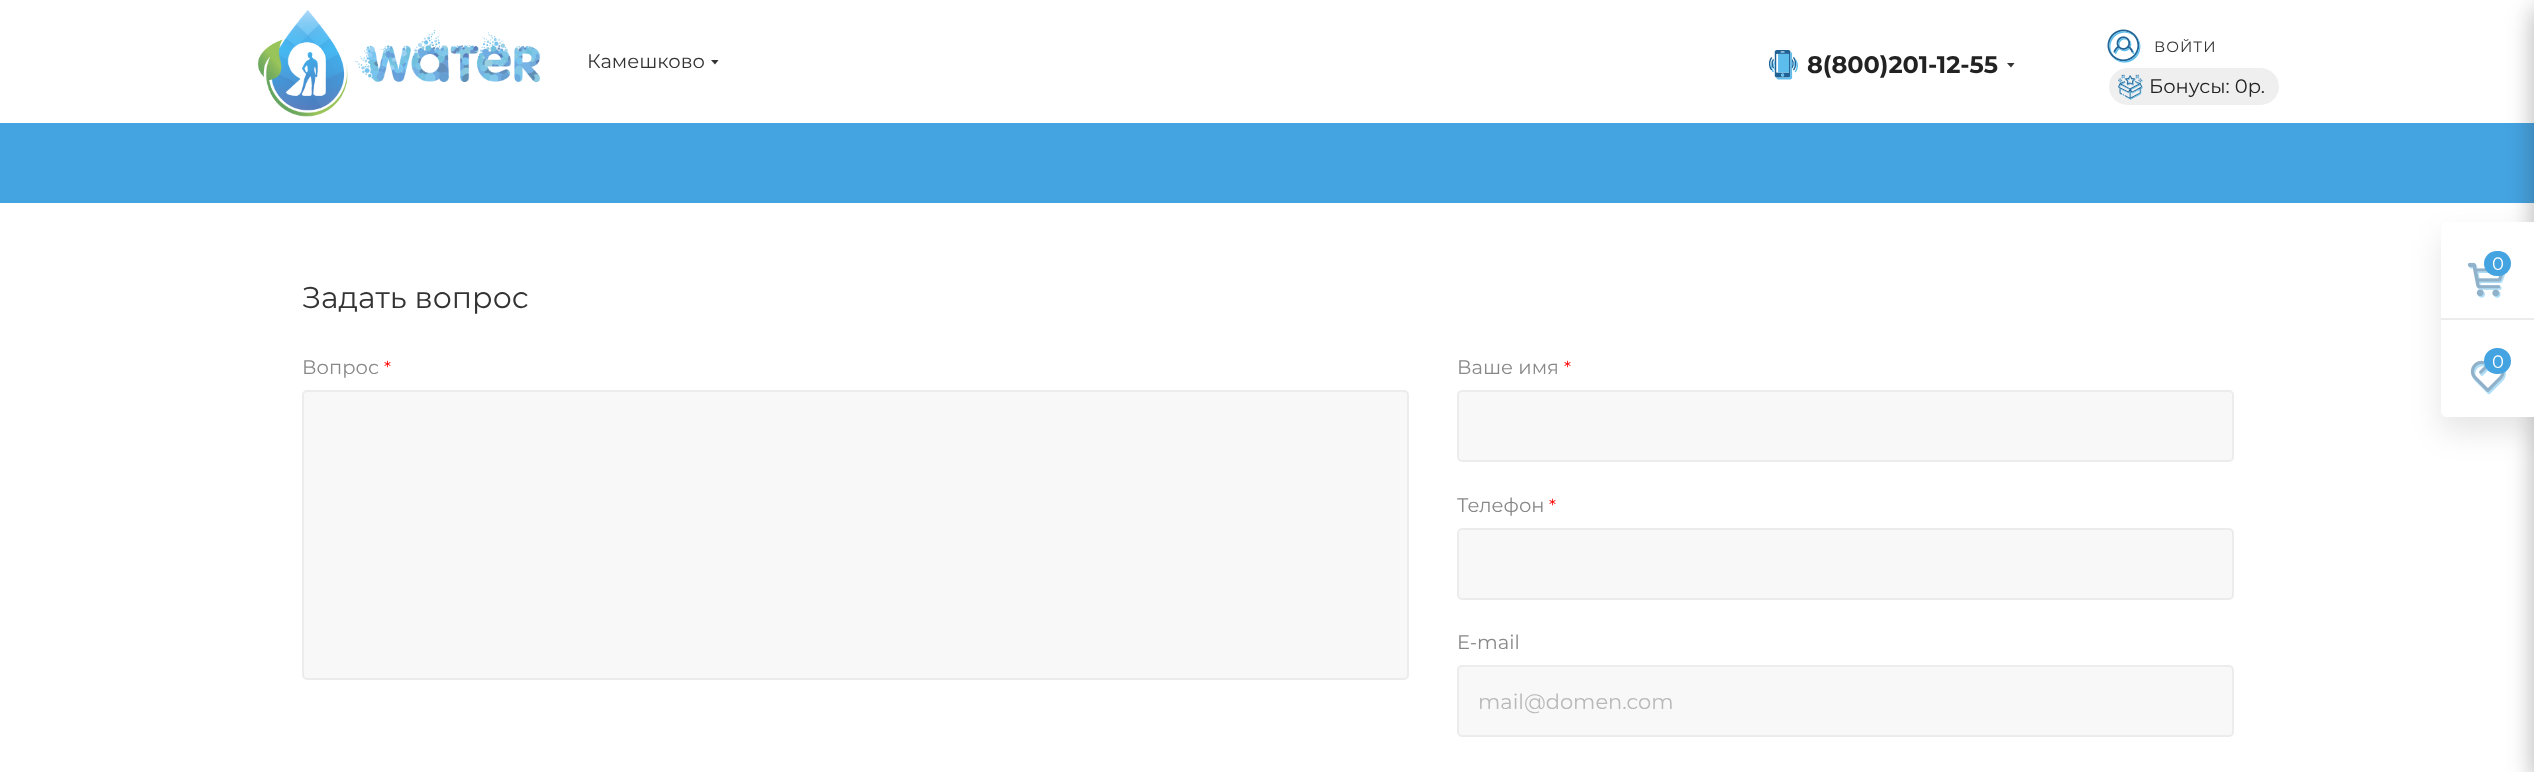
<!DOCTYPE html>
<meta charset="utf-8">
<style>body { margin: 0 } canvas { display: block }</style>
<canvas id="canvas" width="2534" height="772"></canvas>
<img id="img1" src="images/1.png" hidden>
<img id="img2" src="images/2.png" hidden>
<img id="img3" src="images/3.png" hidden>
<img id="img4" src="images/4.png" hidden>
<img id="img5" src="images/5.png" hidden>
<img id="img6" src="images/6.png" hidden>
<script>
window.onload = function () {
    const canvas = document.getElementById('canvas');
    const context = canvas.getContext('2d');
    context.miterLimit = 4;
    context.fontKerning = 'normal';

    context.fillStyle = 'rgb(255, 255, 255)';
    context.fillRect(0, 0, 2534, 772);
    context.drawImage(document.getElementById('img1'), 258, 9, 283, 108);
    context.fillStyle = 'rgb(51, 51, 51)';
    context.beginPath();
    context.moveTo(711, 60);
    context.lineTo(718.5, 60);
    context.lineTo(715, 64.5);
    context.closePath();
    context.fill('evenodd');
    context.drawImage(document.getElementById('img2'), 1769, 50, 29, 30);
    context.beginPath();
    context.moveTo(2007, 63);
    context.lineTo(2014.5, 63);
    context.lineTo(2011, 67.5);
    context.closePath();
    context.fill('evenodd');
    context.drawImage(document.getElementById('img3'), 2107, 29, 34, 34);
    context.fillStyle = 'rgb(239, 239, 239)';
    context.beginPath();
    context.roundRect(2109, 68, 170, 37, 18.5);
    context.fill();
    context.drawImage(document.getElementById('img4'), 2118, 74, 25, 26);
    context.fillStyle = 'rgb(68, 163, 225)';
    context.fillRect(0, 123, 2534, 80);
    context.fillStyle = 'rgb(248, 248, 248)';
    context.beginPath();
    context.roundRect(303, 391, 1105, 288, 4);
    context.fill();
    context.strokeStyle = 'rgb(236, 236, 236)';
    context.lineWidth = 2;
    context.stroke();
    context.beginPath();
    context.roundRect(1458, 391, 775, 70, 4);
    context.fill();
    context.stroke();
    context.beginPath();
    context.roundRect(1458, 529, 775, 70, 4);
    context.fill();
    context.stroke();
    context.beginPath();
    context.roundRect(1458, 666, 775, 70, 4);
    context.fill();
    context.stroke();
    context.fillStyle = 'rgba(44, 44, 44, 0.4)';
    context.filter = 'blur(13.5px)';
    context.beginPath();
    context.roundRect(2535, 9, 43, 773, 3);
    context.fill();
    context.filter = 'none';
    context.fillStyle = 'rgba(0, 0, 0, 0.1)';
    context.filter = 'blur(15px)';
    context.beginPath();
    context.roundRect(2441, 237, 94, 195, 6);
    context.fill();
    context.filter = 'none';
    context.fillStyle = 'rgb(255, 255, 255)';
    context.beginPath();
    context.moveTo(2447, 222);
    context.lineTo(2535, 222);
    context.lineTo(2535, 417);
    context.lineTo(2447, 417);
    context.bezierCurveTo(2443.5, 417, 2441, 414.5, 2441, 411);
    context.lineTo(2441, 228);
    context.bezierCurveTo(2441, 224.5, 2443.5, 222, 2447, 222);
    context.closePath();
    context.fill();
    context.fillStyle = 'rgb(236, 236, 236)';
    context.fillRect(2441, 318, 93, 2);
    context.drawImage(document.getElementById('img5'), 2468, 262, 38, 36);
    context.fillStyle = 'rgb(68, 163, 225)';
    context.beginPath();
    context.roundRect(2484, 251, 27, 25, 12.5);
    context.fill();
    context.drawImage(document.getElementById('img6'), 2470, 360, 36, 35);
    context.beginPath();
    context.roundRect(2484, 348, 27, 26, 13);
    context.fill();
    context.font = '19.5px Montserrat';
    context.fillStyle = 'rgb(51, 51, 51)';
    context.fillText('Камешково', 587, 68);
    context.font = 'bold 24px Montserrat';
    context.fillStyle = 'rgb(34, 34, 34)';
    context.fillText('8(800)201-12-55', 1807, 73);
    context.save();
    context.beginPath();
    context.rect(2154, 39, 63, 18);
    context.clip();
    context.letterSpacing = '1px';
    context.font = '15px Montserrat';
    context.fillStyle = 'rgb(51, 51, 51)';
    context.fillText('ВОЙТИ', 2154, 52);
    context.restore();
    context.font = '19.5px Montserrat';
    context.fillText('Бонусы: 0р.', 2149, 93);
    context.font = '30px Montserrat';
    context.fillStyle = 'rgb(51, 51, 51)';
    context.fillText('Задать вопрос', 302, 308);
    context.font = '19.5px Montserrat';
    context.fillStyle = 'rgb(136, 136, 136)';
    context.fillText('Вопрос', 302, 374);
    context.font = '18px Montserrat';
    context.fillStyle = 'rgb(255, 0, 0)';
    context.fillText('*', 384, 374);
    context.font = '19.5px Montserrat';
    context.fillStyle = 'rgb(136, 136, 136)';
    context.fillText('Ваше имя', 1457, 374);
    context.font = '18px Montserrat';
    context.fillStyle = 'rgb(255, 0, 0)';
    context.fillText('*', 1564, 374);
    context.font = '19.5px Montserrat';
    context.fillStyle = 'rgb(136, 136, 136)';
    context.fillText('Телефон', 1457, 512);
    context.font = '18px Montserrat';
    context.fillStyle = 'rgb(255, 0, 0)';
    context.fillText('*', 1549, 512);
    context.font = '19.5px Montserrat';
    context.fillStyle = 'rgb(136, 136, 136)';
    context.fillText('E-mail', 1457, 649);
    context.font = '21px Montserrat';
    context.fillStyle = 'rgb(184, 184, 184)';
    context.fillText('mail@domen.com', 1478, 709);
    context.font = '18px Montserrat';
    context.fillStyle = 'rgb(255, 255, 255)';
    context.fillText('0', 2492, 270);
    context.fillText('0', 2492, 368);
};
</script>
